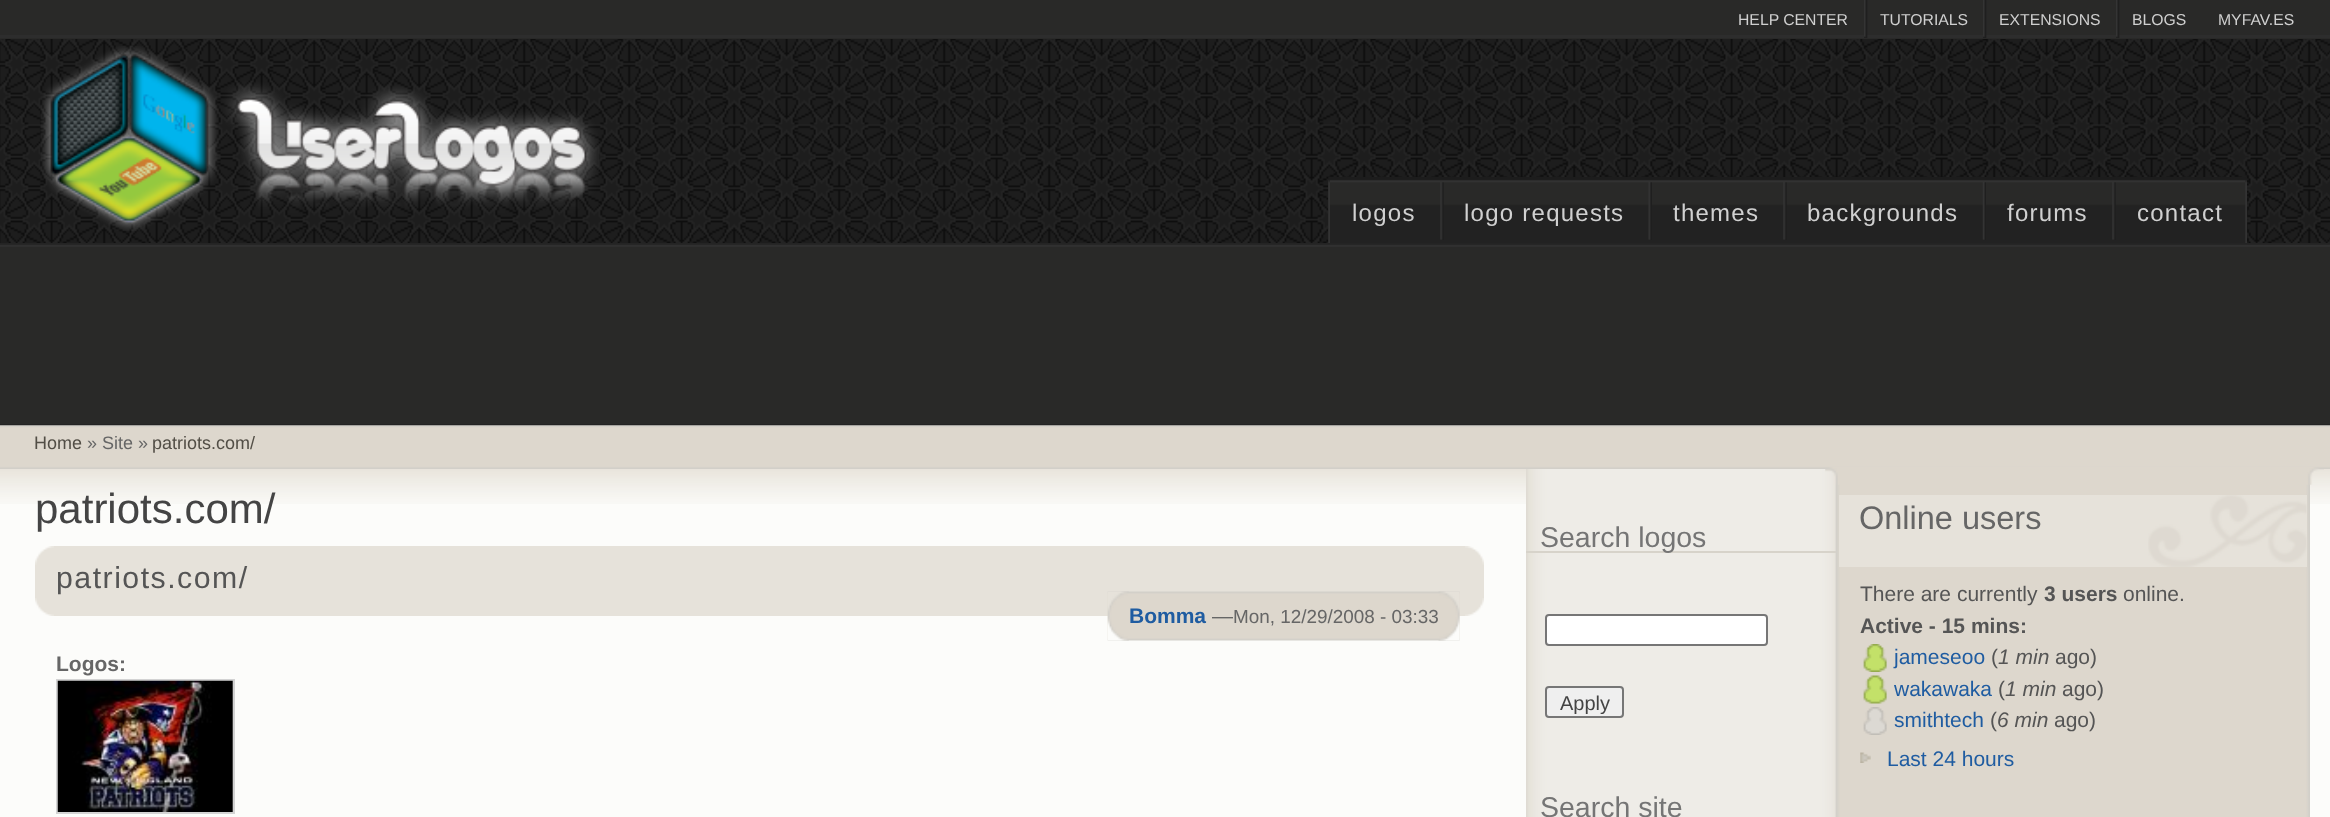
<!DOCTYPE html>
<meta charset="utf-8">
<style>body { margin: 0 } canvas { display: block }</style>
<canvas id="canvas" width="2330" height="817"></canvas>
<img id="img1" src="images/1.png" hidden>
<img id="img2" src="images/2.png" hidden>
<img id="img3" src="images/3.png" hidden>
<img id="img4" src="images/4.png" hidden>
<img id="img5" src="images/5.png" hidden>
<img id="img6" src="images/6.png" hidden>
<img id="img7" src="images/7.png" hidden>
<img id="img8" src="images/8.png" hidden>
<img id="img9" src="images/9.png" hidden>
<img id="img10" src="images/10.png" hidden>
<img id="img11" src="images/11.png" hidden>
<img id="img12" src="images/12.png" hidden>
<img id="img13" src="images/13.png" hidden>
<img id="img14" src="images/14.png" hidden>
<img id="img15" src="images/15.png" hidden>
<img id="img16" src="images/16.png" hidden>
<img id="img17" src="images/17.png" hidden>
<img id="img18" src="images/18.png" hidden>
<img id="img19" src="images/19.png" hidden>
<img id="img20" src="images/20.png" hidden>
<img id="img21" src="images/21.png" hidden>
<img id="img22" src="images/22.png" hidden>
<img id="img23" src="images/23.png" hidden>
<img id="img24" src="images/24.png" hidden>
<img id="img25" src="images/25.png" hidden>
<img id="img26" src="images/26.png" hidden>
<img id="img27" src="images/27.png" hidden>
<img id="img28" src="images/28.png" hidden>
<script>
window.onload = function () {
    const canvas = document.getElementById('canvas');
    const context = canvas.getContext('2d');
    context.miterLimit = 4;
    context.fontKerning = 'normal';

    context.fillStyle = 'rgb(252, 252, 250)';
    context.fillRect(0, 0, 2330, 817);
    context.drawImage(document.getElementById('img1'), 0, 39, 2330, 204);
    context.fillStyle = 'rgb(41, 41, 40)';
    context.fillRect(0, 0, 2330, 39);
    context.fillStyle = 'rgb(45, 45, 45)';
    context.fillRect(0, 35, 2330, 3);
    context.drawImage(document.getElementById('img2'), 1864, 0, 4, 38);
    context.drawImage(document.getElementById('img2'), 1983, 0, 4, 38);
    context.drawImage(document.getElementById('img3'), 2116, 0, 4, 38);
    context.drawImage(document.getElementById('img4'), 41, 46, 558, 185);
    context.drawImage(document.getElementById('img5'), 1328, 177, 919, 66);
    context.drawImage(document.getElementById('img6'), 1328, 180, 2, 63);
    context.drawImage(document.getElementById('img7'), 1440, 182, 4, 58);
    context.drawImage(document.getElementById('img8'), 1648, 182, 4, 58);
    context.drawImage(document.getElementById('img7'), 1783, 182, 4, 58);
    context.drawImage(document.getElementById('img9'), 1982, 182, 4, 58);
    context.drawImage(document.getElementById('img7'), 2112, 182, 4, 58);
    context.drawImage(document.getElementById('img10'), 2245, 180, 2, 63);
    context.fillStyle = 'rgb(41, 41, 40)';
    context.fillRect(0, 243, 2330, 181);
    context.drawImage(document.getElementById('img11'), 0, 243, 2330, 4);
    context.fillStyle = 'rgb(35, 35, 35)';
    context.fillRect(0, 424, 2330, 2);
    context.drawImage(document.getElementById('img12'), 0, 425, 2330, 44);
    context.drawImage(document.getElementById('img13'), 0, 469, 2330, 35);
    context.drawImage(document.getElementById('img14'), 1526, 469, 784, 348);
    context.drawImage(document.getElementById('img15'), 1825, 467, 499, 18);
    context.drawImage(document.getElementById('img16'), 35, 546, 19, 19);
    context.drawImage(document.getElementById('img17'), 1465, 546, 19, 19);
    context.fillStyle = 'rgb(230, 226, 218)';
    context.fillRect(54, 546, 1411, 19);
    context.fillRect(35, 565, 1449, 51);
    context.drawImage(document.getElementById('img18'), 35, 598, 19, 18);
    context.drawImage(document.getElementById('img19'), 1465, 598, 19, 18);
    context.drawImage(document.getElementById('img20'), 1107, 591, 353, 50);
    context.drawImage(document.getElementById('img21'), 1107, 591, 22, 50);
    context.drawImage(document.getElementById('img22'), 1438, 591, 22, 50);
    context.strokeStyle = 'rgb(211, 211, 211)';
    context.lineWidth = 2;
    context.strokeRect(57, 680, 177, 133);
    context.drawImage(document.getElementById('img23'), 57, 680, 176, 132);
    context.fillStyle = 'rgb(215, 211, 202)';
    context.fillRect(1526, 551, 310, 2);
    context.fillStyle = 'rgb(255, 255, 255)';
    context.beginPath();
    context.roundRect(1546, 615, 221, 30, 3);
    context.fill();
    context.strokeStyle = 'rgb(118, 118, 118)';
    context.stroke();
    context.fillStyle = 'rgb(239, 239, 239)';
    context.beginPath();
    context.roundRect(1546, 687, 77, 30, 3);
    context.fill();
    context.stroke();
    context.fillStyle = 'rgb(230, 226, 218)';
    context.fillRect(1839, 495, 468, 72);
    context.drawImage(document.getElementById('img24'), 2148, 495, 159, 72);
    context.drawImage(document.getElementById('img25'), 1863, 644, 24, 28);
    context.drawImage(document.getElementById('img26'), 1863, 675, 24, 29);
    context.drawImage(document.getElementById('img27'), 1863, 707, 24, 28);
    context.drawImage(document.getElementById('img28'), 1860, 752, 11, 11);
    context.font = '15.75px Liberation Sans';
    context.fillStyle = 'rgb(208, 208, 208)';
    context.fillText('HELP CENTER', 1738, 25);
    context.fillText('TUTORIALS', 1880, 25);
    context.fillText('EXTENSIONS', 1999, 25);
    context.fillText('BLOGS', 2132, 25);
    context.fillText('MYFAV.ES', 2218, 25);
    context.letterSpacing = '1.25px';
    context.font = '24px Liberation Sans';
    context.fillText('logos', 1352, 221);
    context.fillText('logo requests', 1464, 221);
    context.fillText('themes', 1673, 221);
    context.fillText('backgrounds', 1807, 221);
    context.fillText('forums', 2007, 221);
    context.fillText('contact', 2137, 221);
    context.letterSpacing = '0px';
    context.font = '18px Liberation Sans';
    context.fillStyle = 'rgb(82, 78, 70)';
    context.fillText('Home', 34, 449);
    context.fillStyle = 'rgb(102, 102, 102)';
    context.fillText('» Site »', 87, 449);
    context.fillStyle = 'rgb(82, 78, 70)';
    context.fillText('patriots.com/', 152, 449);
    context.font = '42px Liberation Sans';
    context.fillStyle = 'rgb(68, 68, 68)';
    context.fillText('patriots.com/', 35, 523);
    context.letterSpacing = '1.5px';
    context.font = '30.25px Liberation Sans';
    context.fillStyle = 'rgb(85, 85, 85)';
    context.fillText('patriots.com/', 56, 588);
    context.letterSpacing = '0px';
    context.font = 'bold 21px Liberation Sans';
    context.fillStyle = 'rgb(31, 92, 161)';
    context.fillText('Bomma', 1129, 623);
    context.font = '21px Liberation Sans';
    context.fillStyle = 'rgb(102, 102, 102)';
    context.fillText('—', 1212, 623);
    context.font = '18.9px Liberation Sans';
    context.fillText('Mon, 12/29/2008 - 03:33', 1233, 623);
    context.font = 'bold 21px Liberation Sans';
    context.fillText('Logos:', 56, 671);
    context.font = '28.5px Liberation Sans';
    context.fillStyle = 'rgb(117, 117, 117)';
    context.fillText('Search logos', 1540, 547);
    context.save();
    context.beginPath();
    context.rect(1549, 690, 72, 24);
    context.clip();
    context.font = '20px Liberation Sans';
    context.fillStyle = 'rgb(68, 68, 68)';
    context.fillText('Apply', 1560, 710);
    context.restore();
    context.fillText('Search site', 1540, 817);
    context.font = '32.5px Liberation Sans';
    context.fillStyle = 'rgb(102, 102, 102)';
    context.fillText('Online users', 1859, 529);
    context.font = '21px Liberation Sans';
    context.fillStyle = 'rgb(85, 85, 85)';
    context.fillText('There are currently', 1860, 601);
    context.font = 'bold 21px Liberation Sans';
    context.fillText('3 users', 2044, 601);
    context.font = '21px Liberation Sans';
    context.fillText('online.', 2123, 601);
    context.font = 'bold 21px Liberation Sans';
    context.fillText('Active - 15 mins:', 1860, 633);
    context.font = '21px Liberation Sans';
    context.fillStyle = 'rgb(31, 92, 161)';
    context.fillText('jameseoo', 1894, 664);
    context.fillStyle = 'rgb(85, 85, 85)';
    context.fillText('(', 1991, 664);
    context.font = 'italic 21px Liberation Sans';
    context.fillText('1 min', 1998, 664);
    context.font = '21px Liberation Sans';
    context.fillText('ago)', 2055, 664);
    context.fillStyle = 'rgb(31, 92, 161)';
    context.fillText('wakawaka', 1894, 696);
    context.fillStyle = 'rgb(85, 85, 85)';
    context.fillText('(', 1998, 696);
    context.font = 'italic 21px Liberation Sans';
    context.fillText('1 min', 2005, 696);
    context.font = '21px Liberation Sans';
    context.fillText('ago)', 2062, 696);
    context.fillStyle = 'rgb(31, 92, 161)';
    context.fillText('smithtech', 1894, 727);
    context.fillStyle = 'rgb(85, 85, 85)';
    context.fillText('(', 1990, 727);
    context.font = 'italic 21px Liberation Sans';
    context.fillText('6 min', 1997, 727);
    context.font = '21px Liberation Sans';
    context.fillText('ago)', 2054, 727);
    context.fillStyle = 'rgb(31, 92, 161)';
    context.fillText('Last 24 hours', 1887, 766);
};
</script>
